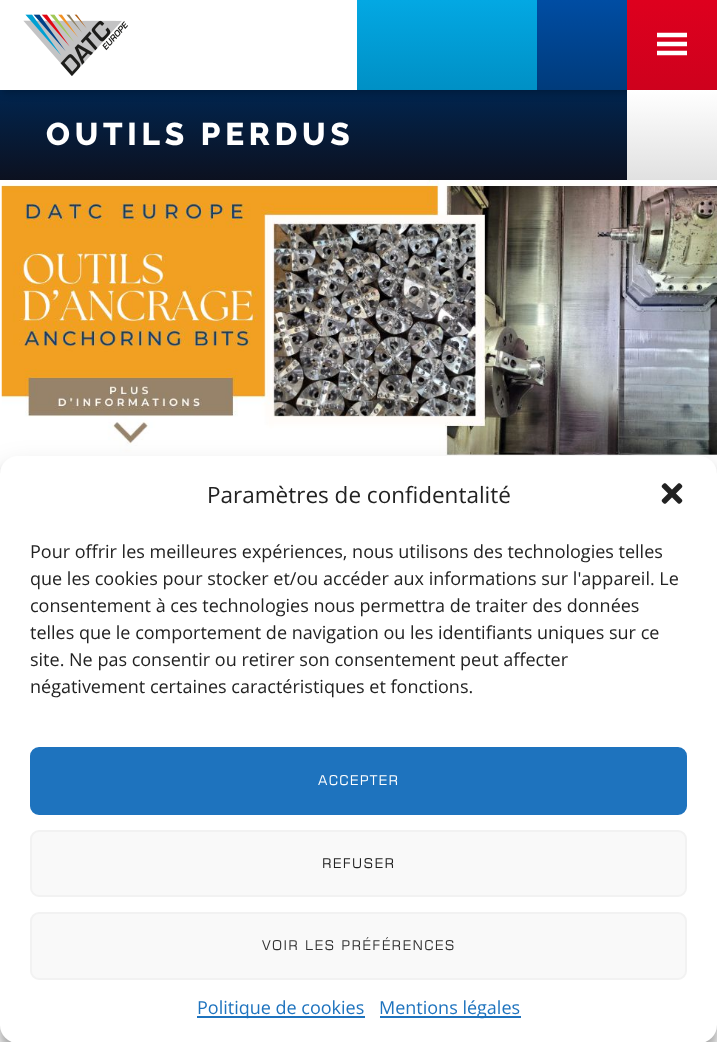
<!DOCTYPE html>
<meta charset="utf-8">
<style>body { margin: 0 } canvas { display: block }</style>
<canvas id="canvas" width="717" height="1042"></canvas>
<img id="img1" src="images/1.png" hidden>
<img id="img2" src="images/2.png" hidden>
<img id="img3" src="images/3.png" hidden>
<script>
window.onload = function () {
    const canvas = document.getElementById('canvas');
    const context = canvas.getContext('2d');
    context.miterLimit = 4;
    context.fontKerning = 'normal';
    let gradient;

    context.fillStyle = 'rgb(255, 255, 255)';
    context.fillRect(0, 0, 717, 1042);
    gradient = context.createLinearGradient(314, 90, 314, 180);
    gradient.addColorStop(0, 'rgb(1, 37, 79)');
    gradient.addColorStop(1, 'rgb(12, 17, 32)');
    context.fillStyle = gradient;
    context.fillRect(0, 90, 627, 90);
    context.fillStyle = 'rgba(0, 0, 0, 0.3)';
    context.filter = 'blur(4px)';
    context.beginPath();
    context.rect(2, 2, 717, 90);
    context.fill();
    context.filter = 'none';
    context.fillStyle = 'rgb(255, 255, 255)';
    context.fillRect(0, 0, 357, 90);
    gradient = context.createLinearGradient(402, 0, 402, 90);
    gradient.addColorStop(0, 'rgb(3, 168, 227)');
    gradient.addColorStop(1, 'rgb(0, 144, 197)');
    context.fillStyle = gradient;
    context.fillRect(357, 0, 90, 90);
    gradient = context.createLinearGradient(492, 0, 492, 90);
    gradient.addColorStop(0, 'rgb(3, 168, 227)');
    gradient.addColorStop(1, 'rgb(0, 144, 197)');
    context.fillStyle = gradient;
    context.fillRect(447, 0, 90, 90);
    gradient = context.createLinearGradient(582, 0, 582, 90);
    gradient.addColorStop(0, 'rgb(0, 77, 163)');
    gradient.addColorStop(1, 'rgb(0, 59, 123)');
    context.fillStyle = gradient;
    context.fillRect(537, 0, 90, 90);
    gradient = context.createLinearGradient(672, 90, 672, 180);
    gradient.addColorStop(0, 'rgb(255, 255, 255)');
    gradient.addColorStop(1, 'rgb(225, 225, 225)');
    context.fillStyle = gradient;
    context.fillRect(627, 90, 90, 90);
    context.drawImage(document.getElementById('img1'), 23, 14, 105, 62);
    gradient = context.createLinearGradient(672, 0, 672, 90);
    gradient.addColorStop(0, 'rgb(222, 0, 30)');
    gradient.addColorStop(1, 'rgb(206, 1, 29)');
    context.fillStyle = gradient;
    context.fillRect(627, 0, 90, 90);
    context.beginPath();
    context.moveTo(657, 44);
    context.lineTo(687, 44);
    context.moveTo(657, 35);
    context.lineTo(687, 35);
    context.moveTo(657, 53);
    context.lineTo(687, 53);
    context.strokeStyle = 'rgb(255, 255, 255)';
    context.lineWidth = 4.5;
    context.stroke();
    context.drawImage(document.getElementById('img2'), 1, 180, 716, 278);
    context.fillStyle = 'rgba(0, 0, 0, 0.23)';
    context.filter = 'blur(4.5px)';
    context.beginPath();
    context.roundRect(0, 465, 717, 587, 18);
    context.fill();
    context.filter = 'none';
    context.fillStyle = 'rgba(0, 0, 0, 0.19)';
    context.filter = 'blur(15px)';
    context.beginPath();
    context.roundRect(0, 471, 717, 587, 18);
    context.fill();
    context.filter = 'none';
    context.fillStyle = 'rgb(128, 128, 128)';
    context.filter = 'blur(4px)';
    context.beginPath();
    context.roundRect(612, 932, 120, 90, 3);
    context.fill();
    context.filter = 'none';
    context.fillStyle = 'rgb(255, 255, 255)';
    context.beginPath();
    context.roundRect(0, 456, 717, 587, 18);
    context.fill();
    context.drawImage(document.getElementById('img3'), 661, 483, 22, 21);
    context.fillStyle = 'rgb(30, 115, 190)';
    context.beginPath();
    context.roundRect(31, 748, 655, 66, 8);
    context.fill();
    context.strokeStyle = 'rgb(30, 115, 190)';
    context.lineWidth = 2;
    context.stroke();
    context.fillStyle = 'rgb(249, 249, 249)';
    context.beginPath();
    context.roundRect(31, 831, 655, 65, 8);
    context.fill();
    context.strokeStyle = 'rgb(242, 242, 242)';
    context.stroke();
    context.beginPath();
    context.roundRect(31, 913, 655, 66, 8);
    context.fill();
    context.stroke();
    context.fillStyle = 'rgb(30, 115, 190)';
    context.fillRect(197, 1016, 168, 2);
    context.fillRect(380, 1016, 141, 2);
    context.letterSpacing = '4.75px';
    context.font = '800 31.5px Raleway';
    context.fillStyle = 'rgb(255, 255, 255)';
    context.fillText('OUTILS PERDUS', 46, 145);
    context.letterSpacing = '0px';
    context.font = '22.5px Open Sans';
    context.fillStyle = 'rgb(34, 34, 34)';
    context.fillText('Paramètres de confidentalité', 207, 503);
    context.font = '18px Open Sans';
    context.fillText('Pour offrir les meilleures expériences, nous utilisons des technologies telles', 30, 558);
    context.fillText('que les cookies pour stocker et/ou accéder aux informations sur l\'appareil. Le', 30, 585);
    context.fillText('consentement à ces technologies nous permettra de traiter des données', 30, 612);
    context.fillText('telles que le comportement de navigation ou les identifiants uniques sur ce', 30, 639);
    context.fillText('site. Ne pas consentir ou retirer son consentement peut affecter', 30, 666);
    context.fillText('négativement certaines caractéristiques et fonctions.', 30, 693);
    context.letterSpacing = '1.35px';
    context.font = '13.5px "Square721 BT"';
    context.fillStyle = 'rgb(255, 255, 255)';
    context.fillText('ACCEPTER', 318, 785);
    context.fillStyle = 'rgb(34, 34, 34)';
    context.fillText('REFUSER', 322, 868);
    context.fillStyle = 'rgb(51, 51, 51)';
    context.fillText('VOIR LES PRÉFÉRENCES', 262, 950);
    context.letterSpacing = '0px';
    context.font = '18px Open Sans';
    context.fillStyle = 'rgb(30, 115, 190)';
    context.fillText('Politique de cookies', 197, 1014);
    context.fillText('Mentions légales', 379, 1014);
};
</script>
